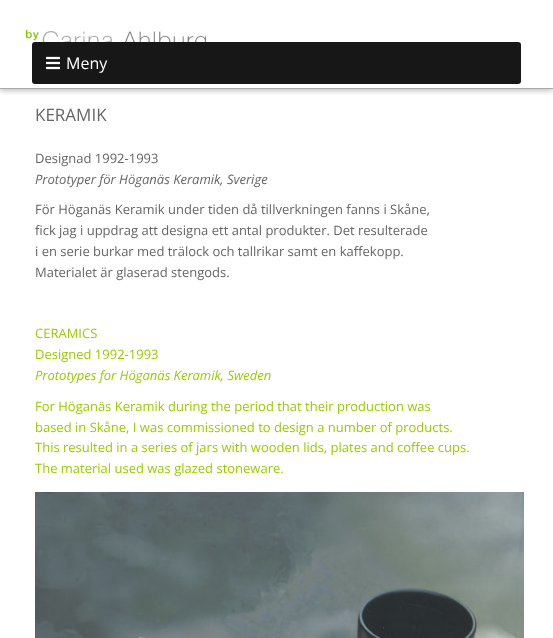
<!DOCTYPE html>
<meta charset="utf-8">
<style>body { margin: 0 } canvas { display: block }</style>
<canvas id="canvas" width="553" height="638"></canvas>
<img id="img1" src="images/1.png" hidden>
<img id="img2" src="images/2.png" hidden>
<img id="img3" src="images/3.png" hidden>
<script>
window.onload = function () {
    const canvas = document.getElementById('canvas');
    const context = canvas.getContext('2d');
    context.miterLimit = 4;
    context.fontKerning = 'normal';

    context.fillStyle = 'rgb(255, 255, 255)';
    context.fillRect(0, 0, 553, 638);
    context.save();
    context.beginPath();
    context.rect(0, 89, 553, 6);
    context.clip();
    context.fillStyle = 'rgba(0, 0, 0, 0.4)';
    context.filter = 'blur(3.5px)';
    context.beginPath();
    context.rect(0, 0, 553, 89);
    context.fill();
    context.filter = 'none';
    context.restore();
    context.fillStyle = 'rgb(170, 170, 170)';
    context.fillRect(0, 88, 553, 1);
    context.drawImage(document.getElementById('img1'), 26, 29, 180, 13);
    context.fillStyle = 'rgb(23, 23, 23)';
    context.beginPath();
    context.roundRect(32, 42, 489, 42, 3);
    context.fill();
    context.drawImage(document.getElementById('img2'), 46, 56, 14, 14);
    context.drawImage(document.getElementById('img3'), 35, 492, 489, 146);
    context.font = '16px Open Sans';
    context.fillStyle = 'rgb(255, 255, 255)';
    context.fillText('Meny', 66, 69);
    context.font = '17px Open Sans';
    context.fillStyle = 'rgb(102, 102, 102)';
    context.fillText('KERAMIK', 35, 121);
    context.font = '13px Open Sans';
    context.fillText('Designad 1992-1993', 35, 163);
    context.font = 'italic 13px Open Sans';
    context.fillText('Prototyper för Höganäs Keramik, Sverige', 35, 184);
    context.font = '13px Open Sans';
    context.fillText('För Höganäs Keramik under tiden då tillverkningen fanns i Skåne,', 35, 214);
    context.fillText('fick jag i uppdrag att designa ett antal produkter. Det resulterade', 35, 235);
    context.fillText('i en serie burkar med trälock och tallrikar samt en kaffekopp.', 35, 256);
    context.fillText('Materialet är glaserad stengods.', 35, 277);
    context.fillStyle = 'rgb(153, 204, 0)';
    context.fillText('CERAMICS', 35, 338);
    context.fillText('Designed 1992-1993', 35, 359);
    context.font = 'italic 13px Open Sans';
    context.fillText('Prototypes for Höganäs Keramik, Sweden', 35, 380);
    context.font = '13px Open Sans';
    context.fillText('For Höganäs Keramik during the period that their production was', 35, 411);
    context.fillText('based in Skåne, I was commissioned to design a number of products.', 35, 432);
    context.fillText('This resulted in a series of jars with wooden lids, plates and coffee cups.', 35, 452);
    context.fillText('The material used was glazed stoneware.', 35, 473);
};
</script>
